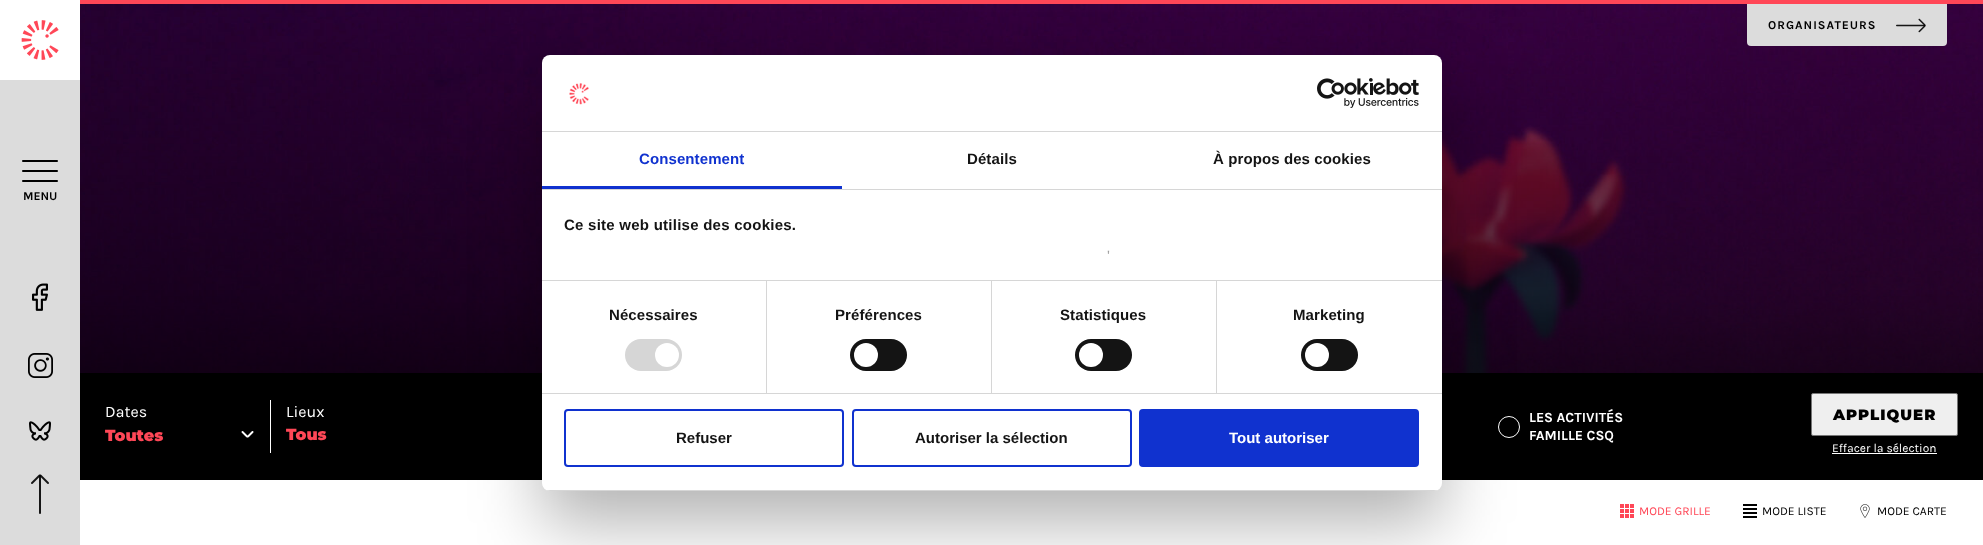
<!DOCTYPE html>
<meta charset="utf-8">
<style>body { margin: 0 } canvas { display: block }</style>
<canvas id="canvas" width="1983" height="545"></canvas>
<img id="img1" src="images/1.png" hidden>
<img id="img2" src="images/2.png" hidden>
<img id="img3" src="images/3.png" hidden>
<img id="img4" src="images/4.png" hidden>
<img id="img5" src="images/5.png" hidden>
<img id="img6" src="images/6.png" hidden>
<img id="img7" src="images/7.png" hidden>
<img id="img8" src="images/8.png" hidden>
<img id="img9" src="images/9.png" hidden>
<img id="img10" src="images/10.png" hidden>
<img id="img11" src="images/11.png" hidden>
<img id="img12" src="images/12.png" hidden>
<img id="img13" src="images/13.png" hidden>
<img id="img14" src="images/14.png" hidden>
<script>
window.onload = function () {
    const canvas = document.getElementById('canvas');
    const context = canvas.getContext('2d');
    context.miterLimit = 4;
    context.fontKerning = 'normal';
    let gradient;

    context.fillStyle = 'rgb(255, 255, 255)';
    context.fillRect(0, 0, 1983, 545);
    context.fillStyle = 'rgb(220, 220, 220)';
    context.fillRect(0, 80, 80, 465);
    context.drawImage(document.getElementById('img1'), 21, 20, 38, 40);
    context.drawImage(document.getElementById('img2'), 22, 160, 36, 22);
    context.drawImage(document.getElementById('img3'), 32, 283, 16, 28);
    context.drawImage(document.getElementById('img4'), 28, 353, 25, 25);
    context.drawImage(document.getElementById('img5'), 29, 421, 22, 20);
    context.drawImage(document.getElementById('img6'), 31, 474, 18, 40);
    context.fillStyle = 'rgb(255, 71, 87)';
    context.fillRect(80, 0, 1903, 4);
    context.drawImage(document.getElementById('img7'), 80, 4, 1903, 369);
    context.fillStyle = 'rgb(220, 220, 220)';
    context.beginPath();
    context.roundRect(1747, 4, 200, 42, [0, 0, 4, 4]);
    context.fill();
    context.drawImage(document.getElementById('img8'), 1896, 18, 30, 15);
    context.fillStyle = 'rgb(0, 0, 0)';
    context.fillRect(80, 373, 1903, 107);
    context.fillStyle = 'rgb(255, 255, 255)';
    context.fillRect(270, 400, 1, 53);
    context.drawImage(document.getElementById('img9'), 241, 431, 13, 7);
    context.beginPath();
    context.arc(1509, 427, 10.5, 0, 2 * Math.PI);
    context.strokeStyle = 'rgb(255, 255, 255)';
    context.stroke();
    context.fillStyle = 'rgb(239, 239, 239)';
    context.beginPath();
    context.roundRect(1811.5, 393.5, 146, 42, 1.5);
    context.fill();
    context.strokeStyle = 'rgb(118, 118, 118)';
    context.stroke();
    context.fillStyle = 'rgb(255, 255, 255)';
    context.fillRect(1832, 453, 105, 1);
    context.drawImage(document.getElementById('img10'), 1620, 504, 14, 14);
    context.drawImage(document.getElementById('img11'), 1743, 504, 14, 14);
    context.drawImage(document.getElementById('img12'), 1860, 504, 10, 14);
    context.fillStyle = 'rgba(0, 0, 0, 0.3)';
    context.filter = 'blur(34px)';
    context.beginPath();
    context.roundRect(542, 87, 900, 436, 8);
    context.fill();
    context.filter = 'none';
    context.fillStyle = 'rgb(255, 255, 255)';
    context.beginPath();
    context.roundRect(542, 55, 900, 436, 8);
    context.fill();
    context.fillStyle = 'rgb(214, 214, 214)';
    context.fillRect(542, 131, 900, 1);
    context.drawImage(document.getElementById('img13'), 569, 83, 20, 22);
    context.drawImage(document.getElementById('img14'), 1317, 78, 102, 30);
    context.fillRect(542, 189, 900, 1);
    context.fillStyle = 'rgb(16, 50, 207)';
    context.fillRect(542, 186, 300, 3);
    context.fillStyle = 'rgb(214, 214, 214)';
    context.fillRect(542, 280, 900, 1);
    context.fillRect(542, 393, 900, 1);
    context.fillRect(766, 281, 1, 112);
    context.beginPath();
    context.roundRect(625, 339, 57, 32, 16);
    context.fill();
    context.fillStyle = 'rgb(255, 255, 255)';
    context.beginPath();
    context.arc(667, 355, 12, 0, 2 * Math.PI);
    context.fill();
    context.fillStyle = 'rgb(214, 214, 214)';
    context.fillRect(991, 281, 1, 112);
    context.fillStyle = 'rgb(20, 20, 20)';
    context.beginPath();
    context.roundRect(850, 339, 57, 32, 16);
    context.fill();
    context.fillStyle = 'rgb(255, 255, 255)';
    context.beginPath();
    context.arc(866, 355, 12, 0, 2 * Math.PI);
    context.fill();
    context.fillStyle = 'rgb(214, 214, 214)';
    context.fillRect(1216, 281, 1, 112);
    context.fillStyle = 'rgb(20, 20, 20)';
    context.beginPath();
    context.roundRect(1075, 339, 57, 32, 16);
    context.fill();
    context.fillStyle = 'rgb(255, 255, 255)';
    context.beginPath();
    context.arc(1091, 355, 12, 0, 2 * Math.PI);
    context.fill();
    context.fillStyle = 'rgb(20, 20, 20)';
    context.beginPath();
    context.roundRect(1301, 339, 57, 32, 16);
    context.fill();
    context.fillStyle = 'rgb(255, 255, 255)';
    context.beginPath();
    context.arc(1317, 355, 12, 0, 2 * Math.PI);
    context.fill();
    context.save();
    context.beginPath();
    context.roundRect(542, 55, 900, 436, 8);
    context.clip();
    context.fillStyle = 'rgb(214, 214, 214)';
    context.fillRect(542, 490, 900, 1);
    context.restore();
    context.beginPath();
    context.roundRect(565, 410, 278, 56, 3);
    context.strokeStyle = 'rgb(16, 50, 207)';
    context.lineWidth = 2;
    context.stroke();
    context.beginPath();
    context.roundRect(853, 410, 278, 56, 3);
    context.stroke();
    context.fillStyle = 'rgb(16, 50, 207)';
    context.beginPath();
    context.roundRect(1140, 410, 278, 56, 3);
    context.fill();
    context.stroke();
    context.font = 'bold 12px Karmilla';
    context.fillStyle = 'rgb(0, 0, 0)';
    context.fillText('MENU', 23, 200);
    context.letterSpacing = '1px';
    context.fillText('ORGANISATEURS', 1768, 29);
    context.letterSpacing = '0px';
    context.font = '16px Karmilla';
    context.fillStyle = 'rgb(255, 255, 255)';
    context.fillText('Dates', 105, 417);
    context.font = '900 16px Montserrat';
    context.fillStyle = 'rgb(255, 71, 87)';
    context.fillText('Toutes', 105, 441);
    context.font = '16px Karmilla';
    context.fillStyle = 'rgb(255, 255, 255)';
    context.fillText('Lieux', 286, 417);
    context.font = '900 16px Montserrat';
    context.fillStyle = 'rgb(255, 71, 87)';
    context.fillText('Tous', 286, 440);
    context.font = 'bold 14px Karmilla';
    context.fillStyle = 'rgb(255, 255, 255)';
    context.fillText('LES ACTIVITÉS', 1529, 422);
    context.fillText('FAMILLE CSQ', 1529, 440);
    context.letterSpacing = '1px';
    context.font = '900 15px Montserrat';
    context.fillStyle = 'rgb(0, 0, 0)';
    context.fillText('APPLIQUER', 1833, 420);
    context.letterSpacing = '0px';
    context.font = '12px Karmilla';
    context.fillStyle = 'rgb(255, 255, 255)';
    context.fillText('Effacer la sélection', 1832, 452);
    context.fillStyle = 'rgb(255, 71, 87)';
    context.fillText('MODE GRILLE', 1639, 515);
    context.fillStyle = 'rgb(0, 0, 0)';
    context.fillText('MODE LISTE', 1762, 515);
    context.fillText('MODE CARTE', 1877, 515);
    context.letterSpacing = '0.1px';
    context.font = 'bold 15px Liberation Sans';
    context.fillStyle = 'rgb(16, 50, 207)';
    context.fillText('Consentement', 639, 164);
    context.fillStyle = 'rgb(20, 20, 20)';
    context.fillText('Détails', 967, 164);
    context.fillText('À propos des cookies', 1213, 164);
    context.letterSpacing = '0.25px';
    context.fillText('Ce site web utilise des cookies.', 564, 230);
    context.letterSpacing = '0px';
    context.font = '15px Liberation Sans';
    context.fillText('\'', 1107, 261);
    gradient = context.createLinearGradient(982, 280, 982, 235);
    gradient.addColorStop(0, 'rgb(255, 255, 255)');
    gradient.addColorStop(0.5, 'rgba(255, 255, 255, 0.8)');
    gradient.addColorStop(1, 'rgba(255, 255, 255, 0)');
    context.fillStyle = gradient;
    context.fillRect(1107, 250, 3, 4);
    context.letterSpacing = '0.1px';
    context.font = 'bold 15px Liberation Sans';
    context.fillStyle = 'rgb(20, 20, 20)';
    context.fillText('Nécessaires', 609, 320);
    context.fillText('Préférences', 835, 320);
    context.fillText('Statistiques', 1060, 320);
    context.fillText('Marketing', 1293, 320);
    context.letterSpacing = '0px';
    context.fillText('Refuser', 676, 443);
    context.fillText('Autoriser la sélection', 915, 443);
    context.fillStyle = 'rgb(255, 255, 255)';
    context.fillText('Tout autoriser', 1229, 443);
};
</script>
